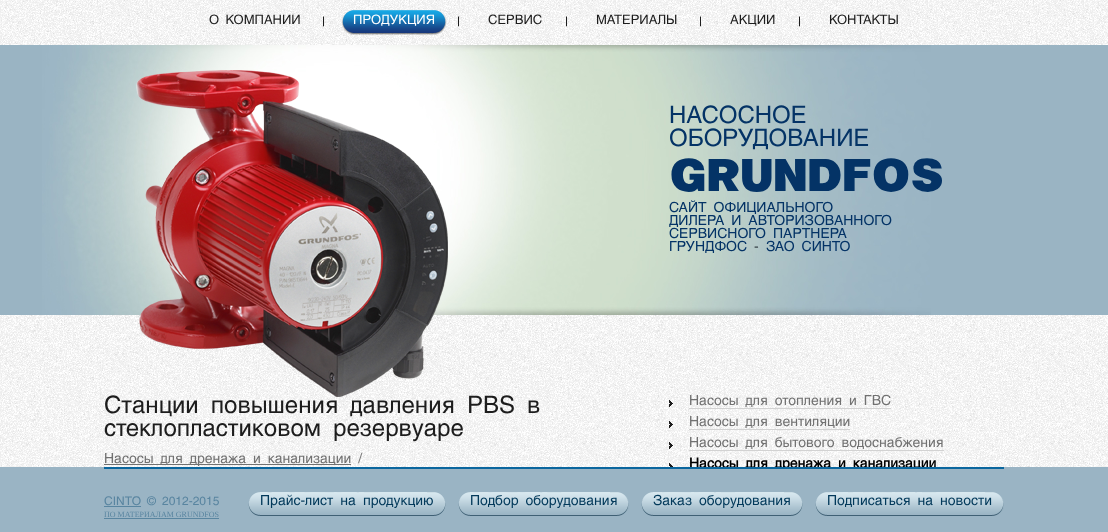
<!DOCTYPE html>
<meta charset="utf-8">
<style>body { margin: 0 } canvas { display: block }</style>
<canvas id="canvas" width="1108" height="532"></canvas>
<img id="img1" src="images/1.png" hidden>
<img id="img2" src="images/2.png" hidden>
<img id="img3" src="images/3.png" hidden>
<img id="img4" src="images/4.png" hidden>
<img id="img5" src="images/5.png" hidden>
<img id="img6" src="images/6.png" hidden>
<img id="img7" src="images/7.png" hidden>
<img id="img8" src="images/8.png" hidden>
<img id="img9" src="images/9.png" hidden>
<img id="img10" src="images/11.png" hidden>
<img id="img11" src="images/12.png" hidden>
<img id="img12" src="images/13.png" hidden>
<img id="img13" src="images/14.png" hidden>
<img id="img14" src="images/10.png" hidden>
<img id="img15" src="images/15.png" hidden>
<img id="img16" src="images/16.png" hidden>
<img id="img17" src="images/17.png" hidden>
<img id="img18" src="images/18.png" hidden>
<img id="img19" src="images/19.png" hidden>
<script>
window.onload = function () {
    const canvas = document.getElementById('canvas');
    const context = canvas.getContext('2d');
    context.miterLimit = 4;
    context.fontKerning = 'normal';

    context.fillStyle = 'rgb(255, 255, 255)';
    context.fillRect(0, 0, 1108, 532);
    context.drawImage(document.getElementById('img1'), 0, 0, 1108, 467);
    context.drawImage(document.getElementById('img2'), 323, 16, 1, 11);
    context.drawImage(document.getElementById('img3'), 342, 10, 11, 25);
    context.drawImage(document.getElementById('img4'), 353, 10, 94, 25);
    context.drawImage(document.getElementById('img5'), 458, 16, 1, 11);
    context.drawImage(document.getElementById('img6'), 566, 16, 1, 11);
    context.drawImage(document.getElementById('img7'), 700, 16, 1, 11);
    context.drawImage(document.getElementById('img8'), 799, 16, 1, 11);
    context.fillStyle = 'rgb(154, 180, 195)';
    context.fillRect(0, 45, 1108, 270);
    context.drawImage(document.getElementById('img9'), 42, 45, 889, 270);
    context.fillStyle = 'rgb(113, 113, 113)';
    context.fillRect(104, 464, 247, 1);
    context.drawImage(document.getElementById('img10'), 669, 400, 4, 7);
    context.fillStyle = 'rgb(210, 210, 210)';
    context.fillRect(689, 408, 202, 1);
    context.drawImage(document.getElementById('img11'), 669, 421, 4, 7);
    context.fillRect(689, 429, 161, 1);
    context.drawImage(document.getElementById('img12'), 669, 442, 4, 7);
    context.fillRect(689, 450, 255, 1);
    context.drawImage(document.getElementById('img13'), 669, 463, 4, 4);
    context.font = '13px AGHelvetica';
    context.fillStyle = 'rgb(29, 29, 29)';
    context.fillText('О КОМПАНИИ', 209, 24);
    context.fillStyle = 'rgb(255, 255, 255)';
    context.fillText('ПРОДУКЦИЯ', 353, 24);
    context.fillStyle = 'rgb(29, 29, 29)';
    context.fillText('СЕРВИС', 488, 24);
    context.fillText('МАТЕРИАЛЫ', 596, 24);
    context.fillText('АКЦИИ', 730, 24);
    context.fillText('КОНТАКТЫ', 829, 24);
    context.font = '24px AGHelvetica';
    context.fillStyle = 'rgb(4, 51, 102)';
    context.fillText('НАСОСНОЕ', 669, 123);
    context.fillText('ОБОРУДОВАНИЕ', 669, 146);
    context.font = 'bold 49px Helvetica';
    context.fillText('GRUNDFOS', 669, 191);
    context.font = '14px AGHelvetica';
    context.fillText('САЙТ ОФИЦИАЛЬНОГО', 669, 212);
    context.fillText('ДИЛЕРА И АВТОРИЗОВАННОГО', 669, 225);
    context.fillText('СЕРВИСНОГО ПАРТНЕРА', 669, 238);
    context.fillText('ГРУНДФОС', 669, 251);
    context.fillStyle = 'rgb(57, 68, 74)';
    context.fillText('-', 754, 251);
    context.fillStyle = 'rgb(4, 51, 102)';
    context.fillText('ЗАО СИНТО', 766, 251);
    context.font = '24px AGHelvetica';
    context.fillStyle = 'rgb(29, 29, 29)';
    context.fillText('Станции повышения давления PBS в', 104, 413);
    context.drawImage(document.getElementById('img14'), 136, 70, 312, 327);
    context.fillText('стеклопластиковом резервуаре', 104, 436);
    context.font = '14px AGHelvetica';
    context.fillStyle = 'rgb(113, 113, 113)';
    context.fillText('Насосы для дренажа и канализации /', 104, 463);
    context.fillText('Насосы для отопления и ГВС', 689, 405);
    context.fillText('Насосы для вентиляции', 689, 426);
    context.fillText('Насосы для бытового водоснабжения', 689, 447);
    context.font = 'bold 14px AGHelvetica';
    context.fillStyle = 'rgb(0, 0, 0)';
    context.fillText('Насосы для дренажа и канализации', 689, 468);
    context.fillStyle = 'rgb(154, 180, 196)';
    context.fillRect(0, 467, 1108, 65);
    context.fillStyle = 'rgb(10, 102, 158)';
    context.fillRect(104, 467, 900, 2);
    context.font = '12px AGHelvetica';
    context.fillStyle = 'rgb(89, 133, 160)';
    context.fillText('CINTO © 2012-2015', 104, 505);
    context.fillRect(104, 506, 37, 1);
    context.font = '8px Liberation Serif';
    context.fillText('ПО МАТЕРИАЛАМ GRUNDFOS', 104, 517);
    context.fillRect(104, 518, 115, 1);
    context.drawImage(document.getElementById('img15'), 248, 492, 12, 24);
    context.drawImage(document.getElementById('img16'), 260, 492, 186, 24);
    context.font = '14px AGHelvetica';
    context.fillStyle = 'rgb(2, 57, 90)';
    context.fillText('Прайс-лист на продукцию', 260, 505);
    context.drawImage(document.getElementById('img15'), 458, 492, 12, 24);
    context.drawImage(document.getElementById('img17'), 470, 492, 159, 24);
    context.fillText('Подбор оборудования', 470, 505);
    context.drawImage(document.getElementById('img15'), 641, 492, 12, 24);
    context.drawImage(document.getElementById('img18'), 653, 492, 150, 24);
    context.fillText('Заказ оборудования', 653, 505);
    context.drawImage(document.getElementById('img15'), 815, 492, 12, 24);
    context.drawImage(document.getElementById('img19'), 827, 492, 177, 24);
    context.fillText('Подписаться на новости', 827, 505);
};
</script>
